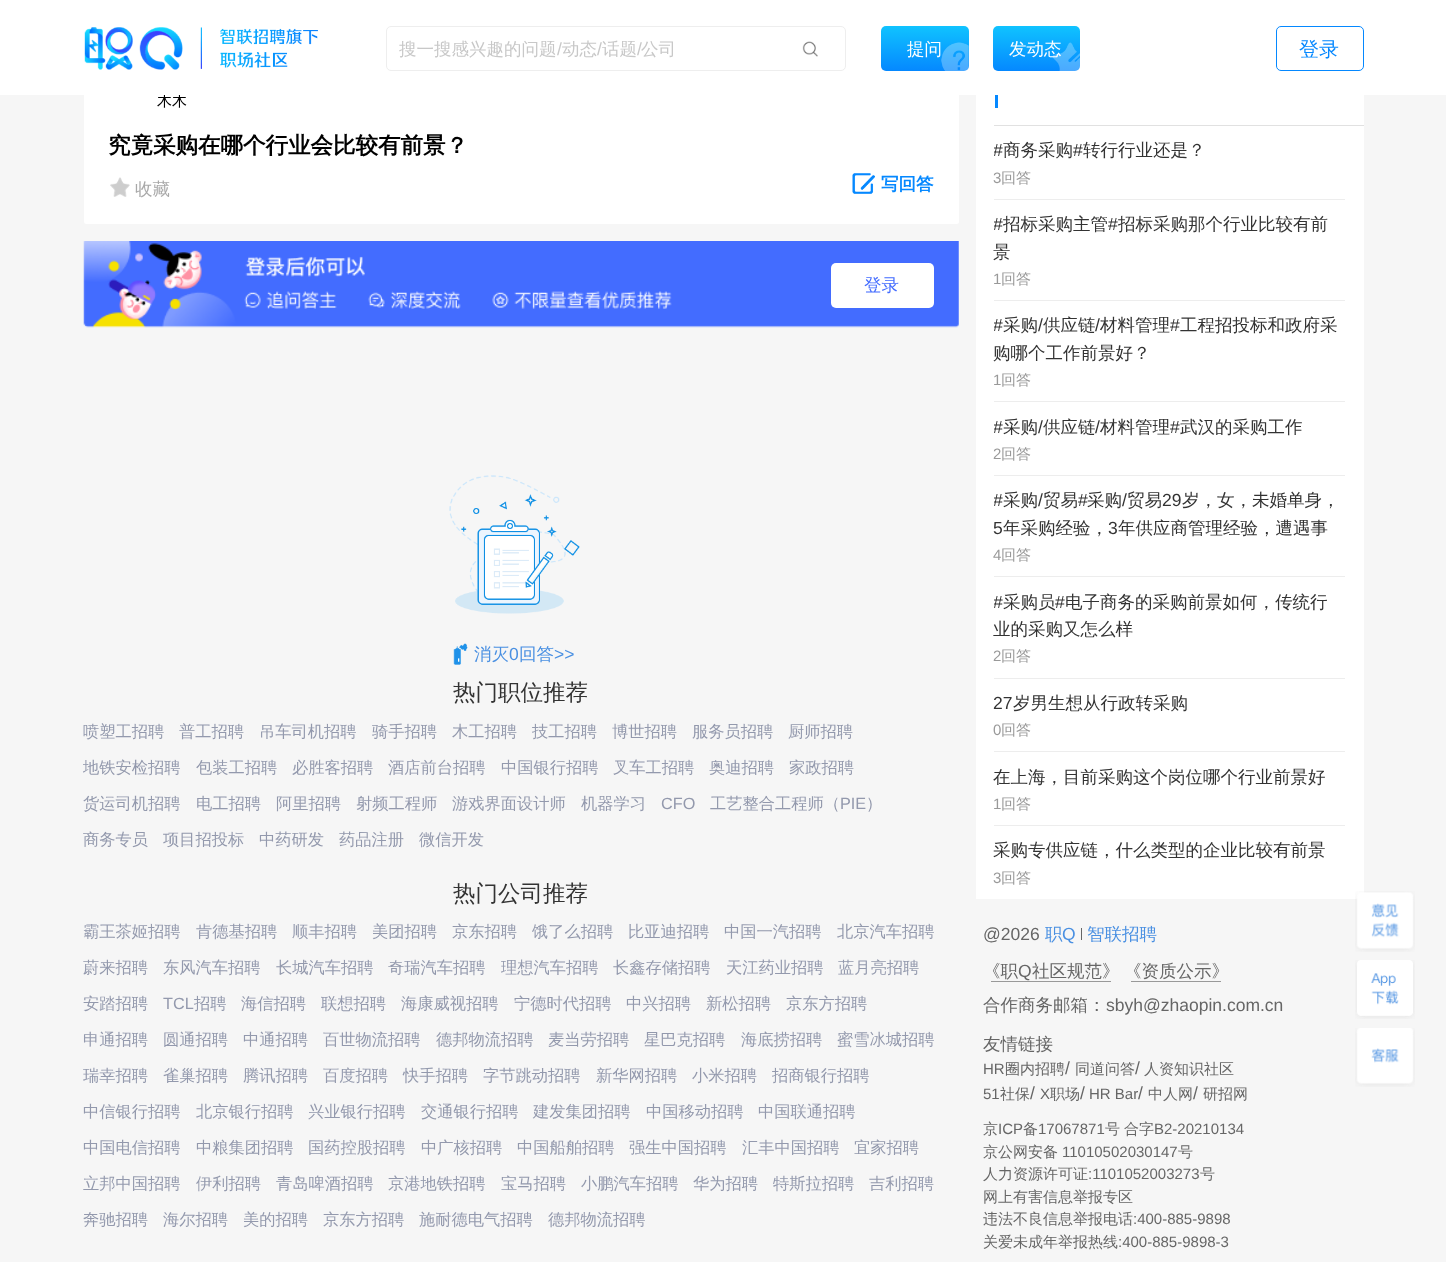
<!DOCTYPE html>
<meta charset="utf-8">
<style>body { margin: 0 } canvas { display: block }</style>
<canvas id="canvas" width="1446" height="1262"></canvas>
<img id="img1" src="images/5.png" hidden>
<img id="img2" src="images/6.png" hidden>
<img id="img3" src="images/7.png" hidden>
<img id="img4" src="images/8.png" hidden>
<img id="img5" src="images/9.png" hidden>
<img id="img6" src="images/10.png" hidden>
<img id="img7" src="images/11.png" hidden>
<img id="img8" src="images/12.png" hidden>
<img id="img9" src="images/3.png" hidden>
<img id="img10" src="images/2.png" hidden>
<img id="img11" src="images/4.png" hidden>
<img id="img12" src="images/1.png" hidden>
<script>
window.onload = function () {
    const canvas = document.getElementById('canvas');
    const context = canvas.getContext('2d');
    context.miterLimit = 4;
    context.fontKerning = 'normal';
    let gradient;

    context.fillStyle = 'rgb(246, 246, 246)';
    context.fillRect(0, 0, 1446, 1262);
    context.fillStyle = 'rgb(255, 255, 255)';
    context.fillRect(976, 95, 388, 804);
    context.drawImage(document.getElementById('img1'), 1355, 891, 60, 61);
    context.drawImage(document.getElementById('img2'), 1355, 960, 60, 59);
    context.drawImage(document.getElementById('img3'), 1355, 1028, 60, 59);
    context.beginPath();
    context.roundRect(84, 69, 875, 155, 2.5);
    context.fill();
    context.drawImage(document.getElementById('img4'), 110, 177, 20, 20);
    context.drawImage(document.getElementById('img5'), 852, 173, 23, 21);
    context.drawImage(document.getElementById('img6'), 83, 241, 876, 87);
    context.beginPath();
    context.roundRect(831, 263, 103, 45, 5);
    context.fill();
    context.drawImage(document.getElementById('img7'), 449, 475, 131, 139);
    context.drawImage(document.getElementById('img8'), 453, 643, 15, 22);
    context.fillStyle = 'rgb(5, 136, 255)';
    context.fillRect(995, 88, 3, 20);
    context.fillStyle = 'rgb(225, 225, 225)';
    context.fillRect(994, 125, 370, 1);
    context.fillStyle = 'rgb(237, 237, 237)';
    context.fillRect(994, 199, 351, 1);
    context.fillRect(994, 300, 351, 1);
    context.fillRect(994, 401, 351, 1);
    context.fillRect(994, 475, 351, 1);
    context.fillRect(994, 576, 351, 1);
    context.fillRect(994, 678, 351, 1);
    context.fillRect(994, 751, 351, 1);
    context.fillRect(994, 825, 351, 1);
    context.fillStyle = 'rgb(102, 102, 102)';
    context.fillRect(1081, 928, 1, 12);
    context.fillStyle = 'rgb(153, 153, 153)';
    context.fillRect(991, 981, 120, 1);
    context.fillRect(1131, 981, 90, 1);
    context.font = '500 15px WenQuanYi Zen Hei';
    context.fillStyle = 'rgb(0, 0, 0)';
    context.fillText('木木', 157, 106);
    context.fillStyle = 'rgb(255, 255, 255)';
    context.fillRect(0, 0, 1446, 95);
    gradient = context.createLinearGradient(925, 26, 925, 71);
    gradient.addColorStop(0, 'rgb(16, 195, 255)');
    gradient.addColorStop(1, 'rgb(5, 136, 255)');
    context.fillStyle = gradient;
    context.beginPath();
    context.roundRect(881, 26, 88, 45, 5);
    context.fill();
    context.font = '500 17.5px WenQuanYi Zen Hei';
    context.fillStyle = 'rgb(255, 255, 255)';
    context.fillText('提问', 907, 55);
    context.drawImage(document.getElementById('img9'), 941, 42, 28, 29);
    context.beginPath();
    context.roundRect(386.5, 26.5, 459, 44, 4.5);
    context.strokeStyle = 'rgb(238, 238, 238)';
    context.stroke();
    context.drawImage(document.getElementById('img10'), 802, 41, 16, 16);
    context.font = '17.5px Liberation Sans';
    context.fillStyle = 'rgb(200, 200, 200)';
    context.fillText('/', 637, 55);
    context.font = '500 17.5px WenQuanYi Zen Hei';
    context.fillText('公司', 641, 55);
    context.font = '17.5px Liberation Sans';
    context.fillText('/', 557, 55);
    context.font = '500 17.5px WenQuanYi Zen Hei';
    context.fillText('动态', 562, 55);
    context.font = '17.5px Liberation Sans';
    context.fillText('/', 597, 55);
    context.font = '500 17.5px WenQuanYi Zen Hei';
    context.fillText('话题', 602, 55);
    context.fillText('搜一搜感兴趣的问题', 399, 55);
    context.beginPath();
    context.roundRect(1276.5, 26.5, 87, 44, 4.5);
    context.strokeStyle = 'rgb(5, 136, 255)';
    context.stroke();
    context.font = '500 20px WenQuanYi Zen Hei';
    context.fillStyle = 'rgb(5, 136, 255)';
    context.fillText('登录', 1299, 56);
    gradient = context.createLinearGradient(1036, 26, 1036, 71);
    gradient.addColorStop(0, 'rgb(16, 195, 255)');
    gradient.addColorStop(1, 'rgb(5, 136, 255)');
    context.fillStyle = gradient;
    context.beginPath();
    context.roundRect(993, 26, 87, 45, 5);
    context.fill();
    context.drawImage(document.getElementById('img11'), 1052, 42, 28, 29);
    context.font = '500 17.5px WenQuanYi Zen Hei';
    context.fillStyle = 'rgb(255, 255, 255)';
    context.fillText('发动态', 1009, 55);
    context.drawImage(document.getElementById('img12'), 84, 27, 234, 43);
    context.font = 'bold 22.5px WenQuanYi Zen Hei';
    context.fillStyle = 'rgb(0, 0, 0)';
    context.fillText('究竟采购在哪个行业会比较有前景？', 108, 153);
    context.font = '500 17.5px WenQuanYi Zen Hei';
    context.fillStyle = 'rgb(169, 169, 169)';
    context.fillText('收藏', 135, 195);
    context.font = 'bold 17.5px WenQuanYi Zen Hei';
    context.fillStyle = 'rgb(5, 136, 255)';
    context.fillText('写回答', 881, 190);
    context.font = '500 17.5px WenQuanYi Zen Hei';
    context.fillStyle = 'rgb(67, 108, 255)';
    context.fillText('登录', 864, 291);
    context.fillStyle = 'rgb(74, 144, 226)';
    context.fillText('消灭', 474, 660);
    context.font = '17.5px Liberation Sans';
    context.fillText('0', 509, 660);
    context.font = '500 17.5px WenQuanYi Zen Hei';
    context.fillText('回答', 519, 660);
    context.font = '17.5px Liberation Sans';
    context.fillText('>>', 554, 660);
    context.font = '500 22.5px WenQuanYi Zen Hei';
    context.fillStyle = 'rgb(51, 51, 51)';
    context.fillText('热门职位推荐', 453, 700);
    context.font = '500 16.25px WenQuanYi Zen Hei';
    context.fillStyle = 'rgb(147, 153, 173)';
    context.fillText('喷塑工招聘', 83, 737);
    context.fillText('普工招聘', 179, 737);
    context.fillText('吊车司机招聘', 259, 737);
    context.fillText('骑手招聘', 372, 737);
    context.fillText('木工招聘', 452, 737);
    context.fillText('技工招聘', 532, 737);
    context.fillText('博世招聘', 612, 737);
    context.fillText('服务员招聘', 692, 737);
    context.fillText('厨师招聘', 788, 737);
    context.fillText('地铁安检招聘', 83, 773);
    context.fillText('包装工招聘', 196, 773);
    context.fillText('必胜客招聘', 292, 773);
    context.fillText('酒店前台招聘', 388, 773);
    context.fillText('中国银行招聘', 501, 773);
    context.fillText('叉车工招聘', 613, 773);
    context.fillText('奥迪招聘', 709, 773);
    context.fillText('家政招聘', 789, 773);
    context.fillText('货运司机招聘', 83, 809);
    context.fillText('电工招聘', 196, 809);
    context.fillText('阿里招聘', 276, 809);
    context.fillText('射频工程师', 356, 809);
    context.fillText('游戏界面设计师', 452, 809);
    context.fillText('机器学习', 581, 809);
    context.font = '16.25px Liberation Sans';
    context.fillText('CFO', 661, 809);
    context.font = '500 16.25px WenQuanYi Zen Hei';
    context.fillText('工艺整合工程师（', 710, 809);
    context.font = '16.25px Liberation Sans';
    context.fillText('PIE', 840, 809);
    context.font = '500 16.25px WenQuanYi Zen Hei';
    context.fillText('）', 866, 809);
    context.fillText('商务专员', 83, 845);
    context.fillText('项目招投标', 163, 845);
    context.fillText('中药研发', 259, 845);
    context.fillText('药品注册', 339, 845);
    context.fillText('微信开发', 419, 845);
    context.font = '500 22.5px WenQuanYi Zen Hei';
    context.fillStyle = 'rgb(51, 51, 51)';
    context.fillText('热门公司推荐', 453, 901);
    context.font = '500 16.25px WenQuanYi Zen Hei';
    context.fillStyle = 'rgb(147, 153, 173)';
    context.fillText('霸王茶姬招聘', 83, 937);
    context.fillText('肯德基招聘', 196, 937);
    context.fillText('顺丰招聘', 292, 937);
    context.fillText('美团招聘', 372, 937);
    context.fillText('京东招聘', 452, 937);
    context.fillText('饿了么招聘', 532, 937);
    context.fillText('比亚迪招聘', 628, 937);
    context.fillText('中国一汽招聘', 724, 937);
    context.fillText('北京汽车招聘', 837, 937);
    context.fillText('蔚来招聘', 83, 973);
    context.fillText('东风汽车招聘', 163, 973);
    context.fillText('长城汽车招聘', 276, 973);
    context.fillText('奇瑞汽车招聘', 388, 973);
    context.fillText('理想汽车招聘', 501, 973);
    context.fillText('长鑫存储招聘', 613, 973);
    context.fillText('天江药业招聘', 726, 973);
    context.fillText('蓝月亮招聘', 838, 973);
    context.fillText('安踏招聘', 83, 1009);
    context.font = '16.25px Liberation Sans';
    context.fillText('TCL', 163, 1009);
    context.font = '500 16.25px WenQuanYi Zen Hei';
    context.fillText('招聘', 194, 1009);
    context.fillText('海信招聘', 241, 1009);
    context.fillText('联想招聘', 321, 1009);
    context.fillText('海康威视招聘', 401, 1009);
    context.fillText('宁德时代招聘', 514, 1009);
    context.fillText('中兴招聘', 626, 1009);
    context.fillText('新松招聘', 706, 1009);
    context.fillText('京东方招聘', 786, 1009);
    context.fillText('申通招聘', 83, 1045);
    context.fillText('圆通招聘', 163, 1045);
    context.fillText('中通招聘', 243, 1045);
    context.fillText('百世物流招聘', 323, 1045);
    context.fillText('德邦物流招聘', 436, 1045);
    context.fillText('麦当劳招聘', 548, 1045);
    context.fillText('星巴克招聘', 644, 1045);
    context.fillText('海底捞招聘', 741, 1045);
    context.fillText('蜜雪冰城招聘', 837, 1045);
    context.fillText('瑞幸招聘', 83, 1081);
    context.fillText('雀巢招聘', 163, 1081);
    context.fillText('腾讯招聘', 243, 1081);
    context.fillText('百度招聘', 323, 1081);
    context.fillText('快手招聘', 403, 1081);
    context.fillText('字节跳动招聘', 483, 1081);
    context.fillText('新华网招聘', 596, 1081);
    context.fillText('小米招聘', 692, 1081);
    context.fillText('招商银行招聘', 772, 1081);
    context.fillText('中信银行招聘', 83, 1117);
    context.fillText('北京银行招聘', 196, 1117);
    context.fillText('兴业银行招聘', 308, 1117);
    context.fillText('交通银行招聘', 421, 1117);
    context.fillText('建发集团招聘', 533, 1117);
    context.fillText('中国移动招聘', 646, 1117);
    context.fillText('中国联通招聘', 758, 1117);
    context.fillText('中国电信招聘', 83, 1153);
    context.fillText('中粮集团招聘', 196, 1153);
    context.fillText('国药控股招聘', 308, 1153);
    context.fillText('中广核招聘', 421, 1153);
    context.fillText('中国船舶招聘', 517, 1153);
    context.fillText('强生中国招聘', 629, 1153);
    context.fillText('汇丰中国招聘', 742, 1153);
    context.fillText('宜家招聘', 854, 1153);
    context.fillText('立邦中国招聘', 83, 1189);
    context.fillText('伊利招聘', 196, 1189);
    context.fillText('青岛啤酒招聘', 276, 1189);
    context.fillText('京港地铁招聘', 388, 1189);
    context.fillText('宝马招聘', 501, 1189);
    context.fillText('小鹏汽车招聘', 581, 1189);
    context.fillText('华为招聘', 693, 1189);
    context.fillText('特斯拉招聘', 773, 1189);
    context.fillText('吉利招聘', 869, 1189);
    context.fillText('奔驰招聘', 83, 1225);
    context.fillText('海尔招聘', 163, 1225);
    context.fillText('美的招聘', 243, 1225);
    context.fillText('京东方招聘', 323, 1225);
    context.fillText('施耐德电气招聘', 419, 1225);
    context.fillText('德邦物流招聘', 548, 1225);
    context.save();
    context.beginPath();
    context.rect(994, 136, 351, 28);
    context.clip();
    context.font = '17.5px Liberation Sans';
    context.fillStyle = 'rgb(51, 51, 51)';
    context.fillText('#', 993, 156);
    context.restore();
    context.font = '500 17.5px WenQuanYi Zen Hei';
    context.fillStyle = 'rgb(51, 51, 51)';
    context.fillText('商务采购', 1003, 156);
    context.font = '17.5px Liberation Sans';
    context.fillText('#', 1073, 156);
    context.font = '500 17.5px WenQuanYi Zen Hei';
    context.fillText('转行行业还是？', 1083, 156);
    context.font = '15px Liberation Sans';
    context.fillStyle = 'rgb(153, 153, 153)';
    context.fillText('3', 993, 183);
    context.font = '500 15px WenQuanYi Zen Hei';
    context.fillText('回答', 1001, 183);
    context.save();
    context.beginPath();
    context.rect(994, 210, 351, 55);
    context.clip();
    context.font = '17.5px Liberation Sans';
    context.fillStyle = 'rgb(51, 51, 51)';
    context.fillText('#', 993, 230);
    context.restore();
    context.font = '500 17.5px WenQuanYi Zen Hei';
    context.fillStyle = 'rgb(51, 51, 51)';
    context.fillText('招标采购主管', 1003, 230);
    context.font = '17.5px Liberation Sans';
    context.fillText('#', 1108, 230);
    context.font = '500 17.5px WenQuanYi Zen Hei';
    context.fillText('招标采购那个行业比较有前', 1118, 230);
    context.fillText('景', 993, 258);
    context.font = '15px Liberation Sans';
    context.fillStyle = 'rgb(153, 153, 153)';
    context.fillText('1', 993, 284);
    context.font = '500 15px WenQuanYi Zen Hei';
    context.fillText('回答', 1001, 284);
    context.save();
    context.beginPath();
    context.rect(994, 311, 351, 55);
    context.clip();
    context.font = '17.5px Liberation Sans';
    context.fillStyle = 'rgb(51, 51, 51)';
    context.fillText('#', 993, 331);
    context.restore();
    context.font = '500 17.5px WenQuanYi Zen Hei';
    context.fillStyle = 'rgb(51, 51, 51)';
    context.fillText('采购', 1003, 331);
    context.font = '17.5px Liberation Sans';
    context.fillText('/', 1038, 331);
    context.font = '500 17.5px WenQuanYi Zen Hei';
    context.fillText('供应链', 1043, 331);
    context.font = '17.5px Liberation Sans';
    context.fillText('/', 1095, 331);
    context.font = '500 17.5px WenQuanYi Zen Hei';
    context.fillText('材料管理', 1100, 331);
    context.font = '17.5px Liberation Sans';
    context.fillText('#', 1170, 331);
    context.font = '500 17.5px WenQuanYi Zen Hei';
    context.fillText('工程招投标和政府采', 1180, 331);
    context.fillText('购哪个工作前景好？', 993, 359);
    context.font = '15px Liberation Sans';
    context.fillStyle = 'rgb(153, 153, 153)';
    context.fillText('1', 993, 385);
    context.font = '500 15px WenQuanYi Zen Hei';
    context.fillText('回答', 1001, 385);
    context.save();
    context.beginPath();
    context.rect(994, 413, 351, 27);
    context.clip();
    context.font = '17.5px Liberation Sans';
    context.fillStyle = 'rgb(51, 51, 51)';
    context.fillText('#', 993, 433);
    context.restore();
    context.font = '500 17.5px WenQuanYi Zen Hei';
    context.fillStyle = 'rgb(51, 51, 51)';
    context.fillText('采购', 1003, 433);
    context.font = '17.5px Liberation Sans';
    context.fillText('/', 1038, 433);
    context.font = '500 17.5px WenQuanYi Zen Hei';
    context.fillText('供应链', 1043, 433);
    context.font = '17.5px Liberation Sans';
    context.fillText('/', 1095, 433);
    context.font = '500 17.5px WenQuanYi Zen Hei';
    context.fillText('材料管理', 1100, 433);
    context.font = '17.5px Liberation Sans';
    context.fillText('#', 1170, 433);
    context.font = '500 17.5px WenQuanYi Zen Hei';
    context.fillText('武汉的采购工作', 1180, 433);
    context.font = '15px Liberation Sans';
    context.fillStyle = 'rgb(153, 153, 153)';
    context.fillText('2', 993, 459);
    context.font = '500 15px WenQuanYi Zen Hei';
    context.fillText('回答', 1001, 459);
    context.save();
    context.beginPath();
    context.rect(994, 486, 351, 55);
    context.clip();
    context.font = '17.5px Liberation Sans';
    context.fillStyle = 'rgb(51, 51, 51)';
    context.fillText('#', 993, 506);
    context.restore();
    context.font = '500 17.5px WenQuanYi Zen Hei';
    context.fillStyle = 'rgb(51, 51, 51)';
    context.fillText('采购', 1003, 506);
    context.font = '17.5px Liberation Sans';
    context.fillText('/', 1038, 506);
    context.font = '500 17.5px WenQuanYi Zen Hei';
    context.fillText('贸易', 1043, 506);
    context.font = '17.5px Liberation Sans';
    context.fillText('#', 1078, 506);
    context.font = '500 17.5px WenQuanYi Zen Hei';
    context.fillText('采购', 1087, 506);
    context.font = '17.5px Liberation Sans';
    context.fillText('/', 1122, 506);
    context.font = '500 17.5px WenQuanYi Zen Hei';
    context.fillText('贸易', 1127, 506);
    context.font = '17.5px Liberation Sans';
    context.fillText('29', 1162, 506);
    context.font = '500 17.5px WenQuanYi Zen Hei';
    context.fillText('岁，女，未婚单身，', 1182, 506);
    context.font = '17.5px Liberation Sans';
    context.fillText('5', 993, 534);
    context.font = '500 17.5px WenQuanYi Zen Hei';
    context.fillText('年采购经验，', 1003, 534);
    context.font = '17.5px Liberation Sans';
    context.fillText('3', 1108, 534);
    context.font = '500 17.5px WenQuanYi Zen Hei';
    context.fillText('年供应商管理经验，遭遇事', 1118, 534);
    context.font = '15px Liberation Sans';
    context.fillStyle = 'rgb(153, 153, 153)';
    context.fillText('4', 993, 560);
    context.font = '500 15px WenQuanYi Zen Hei';
    context.fillText('回答', 1001, 560);
    context.save();
    context.beginPath();
    context.rect(994, 588, 351, 55);
    context.clip();
    context.font = '17.5px Liberation Sans';
    context.fillStyle = 'rgb(51, 51, 51)';
    context.fillText('#', 993, 608);
    context.restore();
    context.font = '500 17.5px WenQuanYi Zen Hei';
    context.fillStyle = 'rgb(51, 51, 51)';
    context.fillText('采购员', 1003, 608);
    context.font = '17.5px Liberation Sans';
    context.fillText('#', 1055, 608);
    context.font = '500 17.5px WenQuanYi Zen Hei';
    context.fillText('电子商务的采购前景如何，传统行', 1065, 608);
    context.fillText('业的采购又怎么样', 993, 635);
    context.font = '15px Liberation Sans';
    context.fillStyle = 'rgb(153, 153, 153)';
    context.fillText('2', 993, 661);
    context.font = '500 15px WenQuanYi Zen Hei';
    context.fillText('回答', 1001, 661);
    context.font = '17.5px Liberation Sans';
    context.fillStyle = 'rgb(51, 51, 51)';
    context.fillText('27', 993, 709);
    context.font = '500 17.5px WenQuanYi Zen Hei';
    context.fillText('岁男生想从行政转采购', 1013, 709);
    context.font = '15px Liberation Sans';
    context.fillStyle = 'rgb(153, 153, 153)';
    context.fillText('0', 993, 735);
    context.font = '500 15px WenQuanYi Zen Hei';
    context.fillText('回答', 1001, 735);
    context.font = '500 17.5px WenQuanYi Zen Hei';
    context.fillStyle = 'rgb(51, 51, 51)';
    context.fillText('在上海，目前采购这个岗位哪个行业前景好', 993, 783);
    context.font = '15px Liberation Sans';
    context.fillStyle = 'rgb(153, 153, 153)';
    context.fillText('1', 993, 809);
    context.font = '500 15px WenQuanYi Zen Hei';
    context.fillText('回答', 1001, 809);
    context.font = '500 17.5px WenQuanYi Zen Hei';
    context.fillStyle = 'rgb(51, 51, 51)';
    context.fillText('采购专供应链，什么类型的企业比较有前景', 993, 856);
    context.font = '15px Liberation Sans';
    context.fillStyle = 'rgb(153, 153, 153)';
    context.fillText('3', 993, 883);
    context.font = '500 15px WenQuanYi Zen Hei';
    context.fillText('回答', 1001, 883);
    context.font = '17.5px Liberation Sans';
    context.fillStyle = 'rgb(102, 102, 102)';
    context.fillText('@2026', 983, 940);
    context.font = '500 17.5px WenQuanYi Zen Hei';
    context.fillStyle = 'rgb(74, 144, 226)';
    context.fillText('职', 1045, 940);
    context.font = '17.5px Liberation Sans';
    context.fillText('Q', 1062, 940);
    context.font = '500 17.5px WenQuanYi Zen Hei';
    context.fillText('智联招聘', 1087, 940);
    context.fillStyle = 'rgb(102, 102, 102)';
    context.fillText('《职', 983, 977);
    context.font = '17.5px Liberation Sans';
    context.fillText('Q', 1018, 977);
    context.font = '500 17.5px WenQuanYi Zen Hei';
    context.fillText('社区规范》', 1032, 977);
    context.fillText('《资质公示》', 1124, 977);
    context.fillText('合作商务邮箱：', 983, 1011);
    context.font = '17.5px Liberation Sans';
    context.fillText('sbyh@zhaopin.com.cn', 1106, 1011);
    context.font = '500 17.5px WenQuanYi Zen Hei';
    context.fillText('友情链接', 983, 1050);
    context.font = '15px Liberation Sans';
    context.fillText('HR', 983, 1074);
    context.font = '500 15px WenQuanYi Zen Hei';
    context.fillText('圈内招聘', 1005, 1074);
    context.font = '17.5px Liberation Sans';
    context.fillText('/', 1065, 1074);
    context.font = '500 15px WenQuanYi Zen Hei';
    context.fillText('同道问答', 1075, 1074);
    context.font = '17.5px Liberation Sans';
    context.fillText('/', 1135, 1074);
    context.font = '500 15px WenQuanYi Zen Hei';
    context.fillText('人资知识社区', 1144, 1074);
    context.font = '15px Liberation Sans';
    context.fillText('51', 983, 1099);
    context.font = '500 15px WenQuanYi Zen Hei';
    context.fillText('社保', 1000, 1099);
    context.font = '17.5px Liberation Sans';
    context.fillText('/', 1030, 1099);
    context.font = '15px Liberation Sans';
    context.fillText('X', 1040, 1099);
    context.font = '500 15px WenQuanYi Zen Hei';
    context.fillText('职场', 1050, 1099);
    context.font = '17.5px Liberation Sans';
    context.fillText('/', 1080, 1099);
    context.font = '15px Liberation Sans';
    context.fillText('HR Bar', 1089, 1099);
    context.font = '17.5px Liberation Sans';
    context.fillText('/', 1138, 1099);
    context.font = '500 15px WenQuanYi Zen Hei';
    context.fillText('中人网', 1148, 1099);
    context.font = '17.5px Liberation Sans';
    context.fillText('/', 1193, 1099);
    context.font = '500 15px WenQuanYi Zen Hei';
    context.fillText('研招网', 1203, 1099);
    context.fillText('京', 983, 1134);
    context.font = '15px Liberation Sans';
    context.fillText('ICP', 998, 1134);
    context.font = '500 15px WenQuanYi Zen Hei';
    context.fillText('备', 1023, 1134);
    context.font = '15px Liberation Sans';
    context.fillText('17067871', 1038, 1134);
    context.font = '500 15px WenQuanYi Zen Hei';
    context.fillText('号', 1105, 1134);
    context.fillText('合字', 1124, 1134);
    context.font = '15px Liberation Sans';
    context.fillText('B2-20210134', 1154, 1134);
    context.font = '500 15px WenQuanYi Zen Hei';
    context.fillText('京公网安备', 983, 1157);
    context.font = '15px Liberation Sans';
    context.fillText('11010502030147', 1062, 1157);
    context.font = '500 15px WenQuanYi Zen Hei';
    context.fillText('号', 1178, 1157);
    context.fillText('人力资源许可证', 983, 1179);
    context.font = '15px Liberation Sans';
    context.fillText(':1101052003273', 1088, 1179);
    context.font = '500 15px WenQuanYi Zen Hei';
    context.fillText('号', 1200, 1179);
    context.fillText('网上有害信息举报专区', 983, 1202);
    context.fillText('违法不良信息举报电话', 983, 1224);
    context.font = '15px Liberation Sans';
    context.fillText(':400-885-9898', 1133, 1224);
    context.font = '500 15px WenQuanYi Zen Hei';
    context.fillText('关爱未成年举报热线', 983, 1247);
    context.font = '15px Liberation Sans';
    context.fillText(':400-885-9898-3', 1118, 1247);
};
</script>
